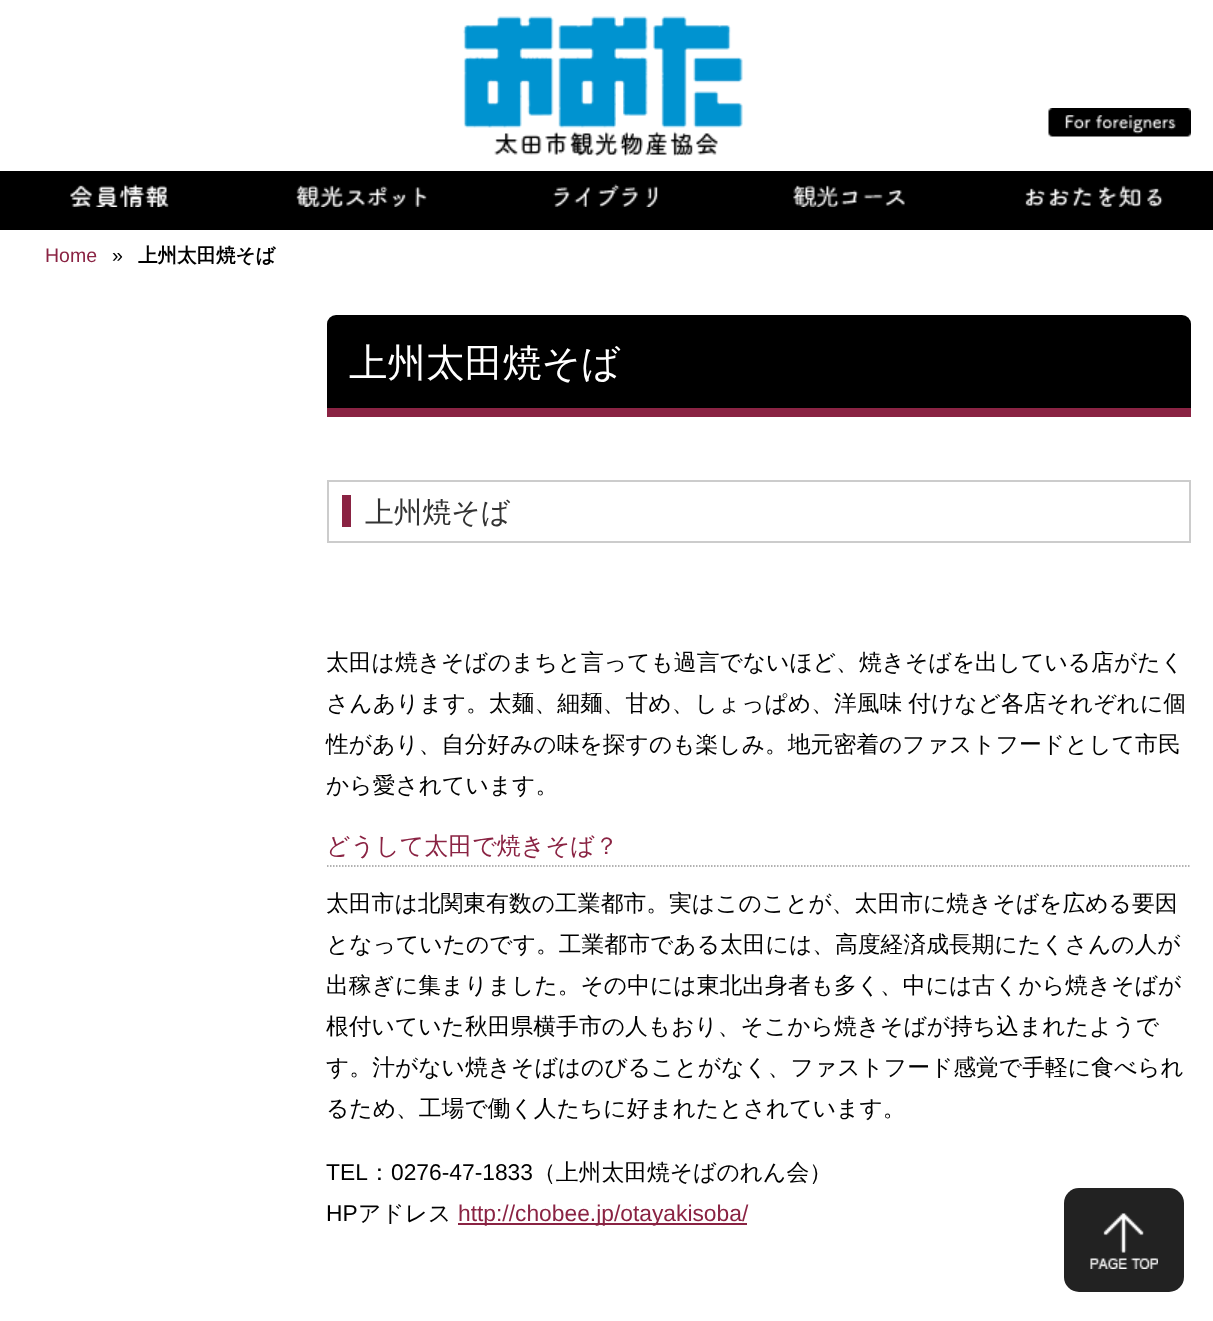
<!DOCTYPE html>
<meta charset="utf-8">
<style>body { margin: 0 } canvas { display: block }</style>
<canvas id="canvas" width="1213" height="1321"></canvas>
<img id="img1" src="images/1.png" hidden>
<img id="img2" src="images/2.png" hidden>
<img id="img3" src="images/3.png" hidden>
<img id="img4" src="images/4.png" hidden>
<img id="img5" src="images/5.png" hidden>
<img id="img6" src="images/6.png" hidden>
<img id="img7" src="images/7.png" hidden>
<img id="img8" src="images/8.png" hidden>
<script>
window.onload = function () {
    const canvas = document.getElementById('canvas');
    const context = canvas.getContext('2d');
    context.miterLimit = 4;
    context.fontKerning = 'normal';

    context.fillStyle = 'rgb(255, 255, 255)';
    context.fillRect(0, 0, 1213, 1321);
    context.drawImage(document.getElementById('img1'), 463, 16, 280, 140);
    context.drawImage(document.getElementById('img2'), 1048, 108, 143, 29);
    context.fillStyle = 'rgb(0, 0, 0)';
    context.fillRect(0, 171, 1213, 59);
    context.drawImage(document.getElementById('img3'), 70, 184, 99, 23);
    context.drawImage(document.getElementById('img4'), 296, 185, 131, 22);
    context.drawImage(document.getElementById('img5'), 553, 184, 105, 23);
    context.drawImage(document.getElementById('img6'), 793, 185, 112, 22);
    context.drawImage(document.getElementById('img7'), 1025, 185, 138, 22);
    context.beginPath();
    context.roundRect(327, 315, 864, 102, [9, 9, 0, 0]);
    context.fill();
    context.fillStyle = 'rgb(138, 35, 67)';
    context.fillRect(327, 408, 864, 9);
    context.strokeStyle = 'rgb(204, 204, 204)';
    context.lineWidth = 2;
    context.strokeRect(328, 481, 862, 61);
    context.fillRect(342, 495, 9, 32);
    context.beginPath();
    context.moveTo(327, 866);
    context.lineTo(1191, 866);
    context.strokeStyle = 'rgb(153, 153, 153)';
    context.lineWidth = 1.5;
    context.setLineDash([1.5, 1.5]);
    context.stroke();
    context.fillRect(458, 1223, 289, 2);
    context.fillStyle = 'rgb(34, 34, 34)';
    context.beginPath();
    context.roundRect(1064, 1188, 120, 104, 15);
    context.fill();
    context.drawImage(document.getElementById('img8'), 1090, 1213, 68, 56);
    context.font = '19.5px Liberation Sans';
    context.fillStyle = 'rgb(138, 35, 67)';
    context.fillText('Home', 45, 262);
    context.fillStyle = 'rgb(0, 0, 0)';
    context.fillText('»', 112, 262);
    context.font = 'bold 19.5px WenQuanYi Zen Hei';
    context.fillText('上州太田焼そば', 138, 262);
    context.font = '500 38.5px WenQuanYi Zen Hei';
    context.fillStyle = 'rgb(255, 255, 255)';
    context.fillText('上州太田焼そば', 349, 376);
    context.font = '500 28.75px WenQuanYi Zen Hei';
    context.fillStyle = 'rgb(51, 51, 51)';
    context.fillText('上州焼そば', 365, 522);
    context.font = '500 22.8px WenQuanYi Zen Hei';
    context.fillStyle = 'rgb(0, 0, 0)';
    context.fillText('太田は焼きそばのまちと言っても過言でないほど、焼きそばを出している店がたく', 326, 670);
    context.wordSpacing = '-1px';
    context.fillText('さんあります。太麺、細麺、甘め、しょっぱめ、洋風味 付けなど各店それぞれに個', 326, 711);
    context.wordSpacing = '0px';
    context.fillText('性があり、自分好みの味を探すのも楽しみ。地元密着のファストフードとして市民', 326, 752);
    context.fillText('から愛されています。', 326, 793);
    context.font = '500 24px WenQuanYi Zen Hei';
    context.fillStyle = 'rgb(138, 35, 67)';
    context.fillText('どうして太田で焼きそば？', 326, 854);
    context.font = '500 22.8px WenQuanYi Zen Hei';
    context.fillStyle = 'rgb(0, 0, 0)';
    context.fillText('太田市は北関東有数の工業都市。実はこのことが、太田市に焼きそばを広める要因', 326, 911);
    context.fillText('となっていたのです。工業都市である太田には、高度経済成長期にたくさんの人が', 326, 952);
    context.fillText('出稼ぎに集まりました。その中には東北出身者も多く、中には古くから焼きそばが', 326, 993);
    context.fillText('根付いていた秋田県横手市の人もおり、そこから焼きそばが持ち込まれたようで', 326, 1034);
    context.fillText('す。汁がない焼きそばはのびることがなく、ファストフード感覚で手軽に食べられ', 326, 1075);
    context.fillText('るため、工場で働く人たちに好まれたとされています。', 326, 1116);
    context.font = '22.8px Liberation Sans';
    context.fillText('TEL', 326, 1180);
    context.font = '500 22.8px WenQuanYi Zen Hei';
    context.fillText('：', 368, 1180);
    context.font = '22.8px Liberation Sans';
    context.fillText('0276-47-1833', 391, 1180);
    context.font = '500 22.8px WenQuanYi Zen Hei';
    context.fillText('（上州太田焼そばのれん会）', 533, 1180);
    context.font = '22.8px Liberation Sans';
    context.fillText('HP', 326, 1221);
    context.font = '500 22.8px WenQuanYi Zen Hei';
    context.fillText('アドレス', 358, 1221);
    context.font = '22.8px Liberation Sans';
    context.fillStyle = 'rgb(138, 35, 67)';
    context.fillText('http://chobee.jp/otayakisoba/', 458, 1221);
};
</script>
